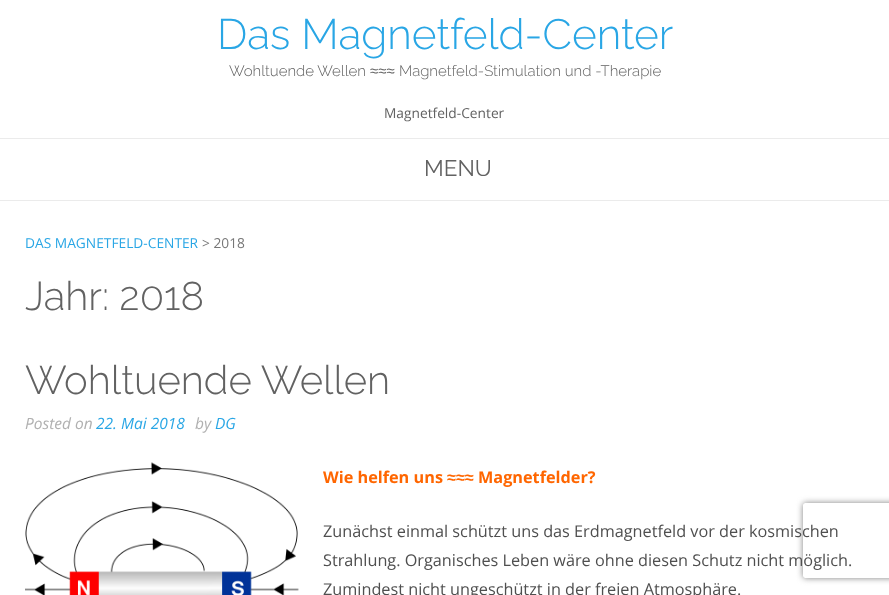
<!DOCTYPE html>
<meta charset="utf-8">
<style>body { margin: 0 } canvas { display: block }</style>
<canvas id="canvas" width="889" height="595"></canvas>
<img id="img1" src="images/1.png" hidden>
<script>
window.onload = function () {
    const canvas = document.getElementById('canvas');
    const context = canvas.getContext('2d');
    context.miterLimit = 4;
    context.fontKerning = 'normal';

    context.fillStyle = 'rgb(255, 255, 255)';
    context.fillRect(0, 0, 889, 595);
    context.fillStyle = 'rgb(235, 235, 235)';
    context.fillRect(0, 200, 889, 1);
    context.fillRect(0, 138, 889, 1);
    context.drawImage(document.getElementById('img1'), 25, 462, 274, 133);
    context.save();
    context.beginPath();
    context.moveTo(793, 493);
    context.lineTo(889, 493);
    context.lineTo(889, 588);
    context.lineTo(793, 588);
    context.closePath();
    context.moveTo(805.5, 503);
    context.lineTo(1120.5, 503);
    context.bezierCurveTo(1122, 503, 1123, 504, 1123, 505.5);
    context.lineTo(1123, 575.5);
    context.bezierCurveTo(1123, 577, 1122, 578, 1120.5, 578);
    context.lineTo(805.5, 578);
    context.bezierCurveTo(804, 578, 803, 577, 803, 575.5);
    context.lineTo(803, 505.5);
    context.bezierCurveTo(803, 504, 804, 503, 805.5, 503);
    context.closePath();
    context.clip('evenodd');
    context.fillStyle = 'rgb(128, 128, 128)';
    context.filter = 'blur(3px)';
    context.beginPath();
    context.roundRect(803, 503, 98, 75, 2.5);
    context.fill();
    context.filter = 'none';
    context.restore();
    context.font = '300 42.5px Raleway';
    context.fillStyle = 'rgb(41, 166, 229)';
    context.fillText('Das Magnetfeld-Center', 217, 49);
    context.font = '300 15px Raleway';
    context.fillStyle = 'rgb(98, 98, 98)';
    context.fillText('Wohltuende Wellen', 229, 76);
    context.font = '15px Liberation Sans';
    context.fillText('≈≈≈', 370, 76);
    context.font = '300 15px Raleway';
    context.fillText('Magnetfeld-Stimulation und -Therapie', 399, 76);
    context.font = '13.75px Open Sans';
    context.fillText('Magnetfeld-Center', 384, 118);
    context.font = '22.5px Raleway';
    context.fillText('MENU', 424, 176);
    context.font = '13.75px Open Sans';
    context.fillStyle = 'rgb(41, 166, 229)';
    context.fillText('DAS MAGNETFELD-CENTER', 25, 248);
    context.fillStyle = 'rgb(119, 119, 119)';
    context.fillText('> 2018', 202, 248);
    context.font = '300 40px Raleway';
    context.fillStyle = 'rgb(98, 98, 98)';
    context.fillText('Jahr: 2018', 25, 310);
    context.fillText('Wohltuende Wellen', 25, 394);
    context.font = 'italic 15.5px Open Sans';
    context.fillStyle = 'rgb(176, 176, 176)';
    context.fillText('Posted on', 25, 429);
    context.fillStyle = 'rgb(41, 166, 229)';
    context.fillText('22. Mai 2018', 96, 429);
    context.fillStyle = 'rgb(176, 176, 176)';
    context.fillText('by', 195, 429);
    context.fillStyle = 'rgb(41, 166, 229)';
    context.fillText('DG', 215, 429);
    context.font = 'bold 16.25px Open Sans';
    context.fillStyle = 'rgb(255, 102, 0)';
    context.fillText('Wie helfen uns', 323, 483);
    context.font = 'bold 16.25px Liberation Sans';
    context.fillText('≈≈≈', 447, 483);
    context.font = 'bold 16.25px Open Sans';
    context.fillText('Magnetfelder?', 478, 483);
    context.font = '16.25px Open Sans';
    context.fillStyle = 'rgb(79, 79, 79)';
    context.fillText('Zunächst einmal schützt uns das Erdmagnetfeld vor der kosmischen', 323, 537);
    context.fillText('Strahlung. Organisches Leben wäre ohne diesen Schutz nicht möglich.', 323, 566);
    context.fillText('Zumindest nicht ungeschützt in der freien Atmosphäre.', 323, 595);
};
</script>
